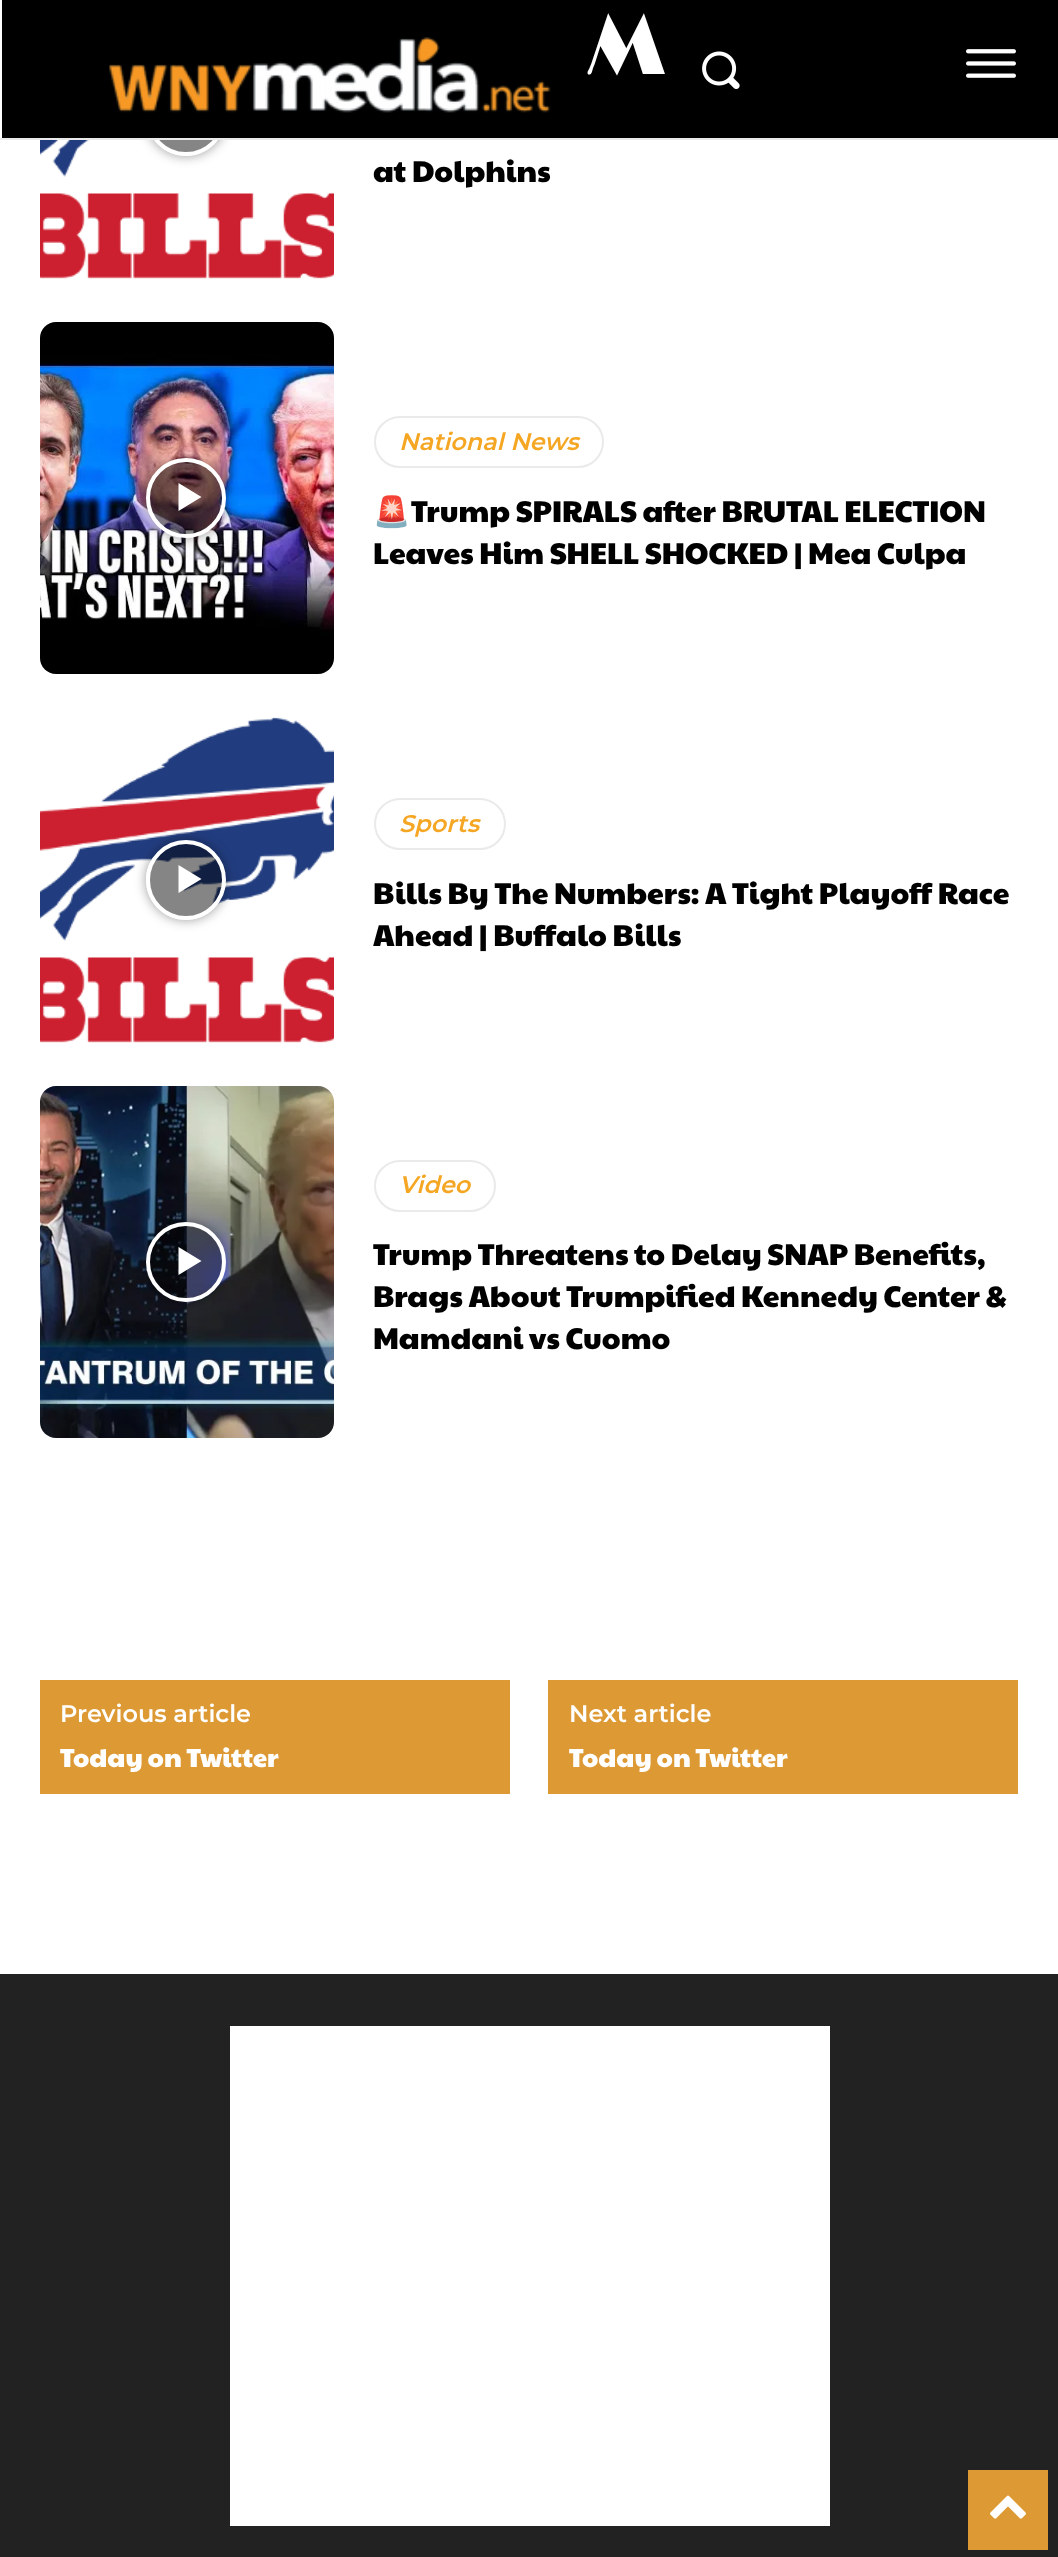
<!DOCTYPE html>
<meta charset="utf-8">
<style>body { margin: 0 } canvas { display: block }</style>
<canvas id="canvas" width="1058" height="2557"></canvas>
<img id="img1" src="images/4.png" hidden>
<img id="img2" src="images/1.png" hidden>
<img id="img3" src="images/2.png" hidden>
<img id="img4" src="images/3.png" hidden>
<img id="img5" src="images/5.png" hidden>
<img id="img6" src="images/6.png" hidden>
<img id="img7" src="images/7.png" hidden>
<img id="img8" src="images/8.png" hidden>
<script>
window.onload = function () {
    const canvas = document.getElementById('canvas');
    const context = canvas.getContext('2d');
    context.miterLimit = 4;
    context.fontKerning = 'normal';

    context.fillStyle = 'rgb(255, 255, 255)';
    context.fillRect(0, 0, 1058, 2557);
    context.drawImage(document.getElementById('img1'), 40, 140, 294, 139);
    context.save();
    context.beginPath();
    context.moveTo(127, 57);
    context.lineTo(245, 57);
    context.lineTo(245, 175);
    context.lineTo(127, 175);
    context.closePath();
    context.moveTo(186, 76);
    context.bezierCurveTo(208, 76, 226, 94, 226, 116);
    context.bezierCurveTo(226, 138, 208, 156, 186, 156);
    context.bezierCurveTo(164, 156, 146, 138, 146, 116);
    context.bezierCurveTo(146, 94, 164, 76, 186, 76);
    context.closePath();
    context.clip('evenodd');
    context.fillStyle = 'rgba(0, 0, 0, 0.4)';
    context.filter = 'blur(6px)';
    context.beginPath();
    context.roundRect(146, 76, 80, 80, 40);
    context.fill();
    context.filter = 'none';
    context.restore();
    context.fillStyle = 'rgba(0, 0, 0, 0.48)';
    context.beginPath();
    context.arc(186, 116, 38, 0, 2 * Math.PI);
    context.fill();
    context.strokeStyle = 'rgb(255, 255, 255)';
    context.lineWidth = 4;
    context.stroke();
    context.fillStyle = 'rgb(234, 234, 234)';
    context.fillRect(0, 138, 1058, 2);
    context.fillStyle = 'rgb(0, 0, 0)';
    context.fillRect(2, 0, 1056, 138);
    context.drawImage(document.getElementById('img2'), 109, 37, 442, 76);
    context.drawImage(document.getElementById('img3'), 702, 51, 38, 38);
    context.drawImage(document.getElementById('img4'), 966, 49, 50, 29);
    context.drawImage(document.getElementById('img5'), 40, 322, 294, 352);
    context.save();
    context.beginPath();
    context.moveTo(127, 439);
    context.lineTo(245, 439);
    context.lineTo(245, 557);
    context.lineTo(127, 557);
    context.closePath();
    context.moveTo(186, 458);
    context.bezierCurveTo(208, 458, 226, 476, 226, 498);
    context.bezierCurveTo(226, 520, 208, 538, 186, 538);
    context.bezierCurveTo(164, 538, 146, 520, 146, 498);
    context.bezierCurveTo(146, 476, 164, 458, 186, 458);
    context.closePath();
    context.clip('evenodd');
    context.fillStyle = 'rgba(0, 0, 0, 0.4)';
    context.filter = 'blur(6px)';
    context.beginPath();
    context.roundRect(146, 458, 80, 80, 40);
    context.fill();
    context.filter = 'none';
    context.restore();
    context.fillStyle = 'rgba(0, 0, 0, 0.48)';
    context.beginPath();
    context.arc(186, 498, 38, 0, 2 * Math.PI);
    context.fill();
    context.stroke();
    context.fillStyle = 'rgb(255, 255, 255)';
    context.beginPath();
    context.moveTo(178.5, 483);
    context.lineTo(178.5, 511);
    context.lineTo(201.5, 497);
    context.closePath();
    context.fill();
    context.beginPath();
    context.roundRect(375, 417, 228, 50, 25);
    context.strokeStyle = 'rgb(234, 234, 234)';
    context.lineWidth = 2;
    context.stroke();
    context.drawImage(document.getElementById('img6'), 40, 717, 294, 326);
    context.save();
    context.beginPath();
    context.moveTo(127, 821);
    context.lineTo(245, 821);
    context.lineTo(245, 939);
    context.lineTo(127, 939);
    context.closePath();
    context.moveTo(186, 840);
    context.bezierCurveTo(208, 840, 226, 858, 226, 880);
    context.bezierCurveTo(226, 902, 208, 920, 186, 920);
    context.bezierCurveTo(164, 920, 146, 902, 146, 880);
    context.bezierCurveTo(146, 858, 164, 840, 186, 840);
    context.closePath();
    context.clip('evenodd');
    context.fillStyle = 'rgba(0, 0, 0, 0.4)';
    context.filter = 'blur(6px)';
    context.beginPath();
    context.roundRect(146, 840, 80, 80, 40);
    context.fill();
    context.filter = 'none';
    context.restore();
    context.fillStyle = 'rgba(0, 0, 0, 0.48)';
    context.beginPath();
    context.arc(186, 880, 38, 0, 2 * Math.PI);
    context.fill();
    context.strokeStyle = 'rgb(255, 255, 255)';
    context.lineWidth = 4;
    context.stroke();
    context.fillStyle = 'rgb(255, 255, 255)';
    context.beginPath();
    context.moveTo(178.5, 865);
    context.lineTo(178.5, 893);
    context.lineTo(201.5, 879);
    context.closePath();
    context.fill();
    context.beginPath();
    context.roundRect(375, 799, 130, 50, 25);
    context.strokeStyle = 'rgb(234, 234, 234)';
    context.lineWidth = 2;
    context.stroke();
    context.drawImage(document.getElementById('img7'), 40, 1086, 294, 352);
    context.save();
    context.beginPath();
    context.moveTo(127, 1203);
    context.lineTo(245, 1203);
    context.lineTo(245, 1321);
    context.lineTo(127, 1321);
    context.closePath();
    context.moveTo(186, 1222);
    context.bezierCurveTo(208, 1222, 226, 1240, 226, 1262);
    context.bezierCurveTo(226, 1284, 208, 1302, 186, 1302);
    context.bezierCurveTo(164, 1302, 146, 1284, 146, 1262);
    context.bezierCurveTo(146, 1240, 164, 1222, 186, 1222);
    context.closePath();
    context.clip('evenodd');
    context.fillStyle = 'rgba(0, 0, 0, 0.4)';
    context.filter = 'blur(6px)';
    context.beginPath();
    context.roundRect(146, 1222, 80, 80, 40);
    context.fill();
    context.filter = 'none';
    context.restore();
    context.fillStyle = 'rgba(0, 0, 0, 0.48)';
    context.beginPath();
    context.arc(186, 1262, 38, 0, 2 * Math.PI);
    context.fill();
    context.strokeStyle = 'rgb(255, 255, 255)';
    context.lineWidth = 4;
    context.stroke();
    context.fillStyle = 'rgb(255, 255, 255)';
    context.beginPath();
    context.moveTo(178.5, 1247);
    context.lineTo(178.5, 1275);
    context.lineTo(201.5, 1261);
    context.closePath();
    context.fill();
    context.beginPath();
    context.roundRect(375, 1161, 120, 50, 25);
    context.strokeStyle = 'rgb(234, 234, 234)';
    context.lineWidth = 2;
    context.stroke();
    context.fillStyle = 'rgb(221, 153, 51)';
    context.fillRect(40, 1680, 470, 114);
    context.fillRect(548, 1680, 470, 114);
    context.fillStyle = 'rgb(34, 34, 34)';
    context.fillRect(0, 1974, 1058, 583);
    context.fillStyle = 'rgb(255, 255, 255)';
    context.fillRect(230, 2026, 600, 500);
    context.fillStyle = 'rgb(221, 153, 51)';
    context.fillRect(968, 2470, 80, 80);
    context.drawImage(document.getElementById('img8'), 990, 2495, 36, 24);
    context.font = '300 84px Limelight';
    context.fillStyle = 'rgb(255, 255, 255)';
    context.fillText('M', 587, 74);
    context.font = '30px Paytone One';
    context.fillStyle = 'rgb(0, 0, 0)';
    context.fillText('at Dolphins', 373, 182);
    context.font = 'italic 600 24px Montserrat';
    context.fillStyle = 'rgb(245, 166, 35)';
    context.fillText('National News', 399, 450);
    context.font = '30px Noto Color Emoji';
    context.fillStyle = 'rgb(0, 0, 0)';
    context.fillText('🚨', 373, 522);
    context.font = '30px Paytone One';
    context.fillText('Trump SPIRALS after BRUTAL ELECTION', 411, 522);
    context.fillText('Leaves Him SHELL SHOCKED | Mea Culpa', 373, 564);
    context.font = 'italic 600 24px Montserrat';
    context.fillStyle = 'rgb(245, 166, 35)';
    context.fillText('Sports', 399, 832);
    context.font = '30px Paytone One';
    context.fillStyle = 'rgb(0, 0, 0)';
    context.fillText('Bills By The Numbers: A Tight Playoff Race', 373, 904);
    context.fillText('Ahead | Buffalo Bills', 373, 946);
    context.font = 'italic 600 24px Montserrat';
    context.fillStyle = 'rgb(245, 166, 35)';
    context.fillText('Video', 399, 1193);
    context.font = '30px Paytone One';
    context.fillStyle = 'rgb(0, 0, 0)';
    context.fillText('Trump Threatens to Delay SNAP Benefits,', 373, 1265);
    context.fillText('Brags About Trumpified Kennedy Center &', 373, 1307);
    context.fillText('Mamdani vs Cuomo', 373, 1349);
    context.font = '600 24px Montserrat';
    context.fillStyle = 'rgb(255, 255, 255)';
    context.fillText('Previous article', 60, 1722);
    context.font = '26px Paytone One';
    context.fillText('Today on Twitter', 60, 1767);
    context.font = '600 24px Montserrat';
    context.fillText('Next article', 569, 1722);
    context.font = '26px Paytone One';
    context.fillText('Today on Twitter', 569, 1767);
};
</script>
